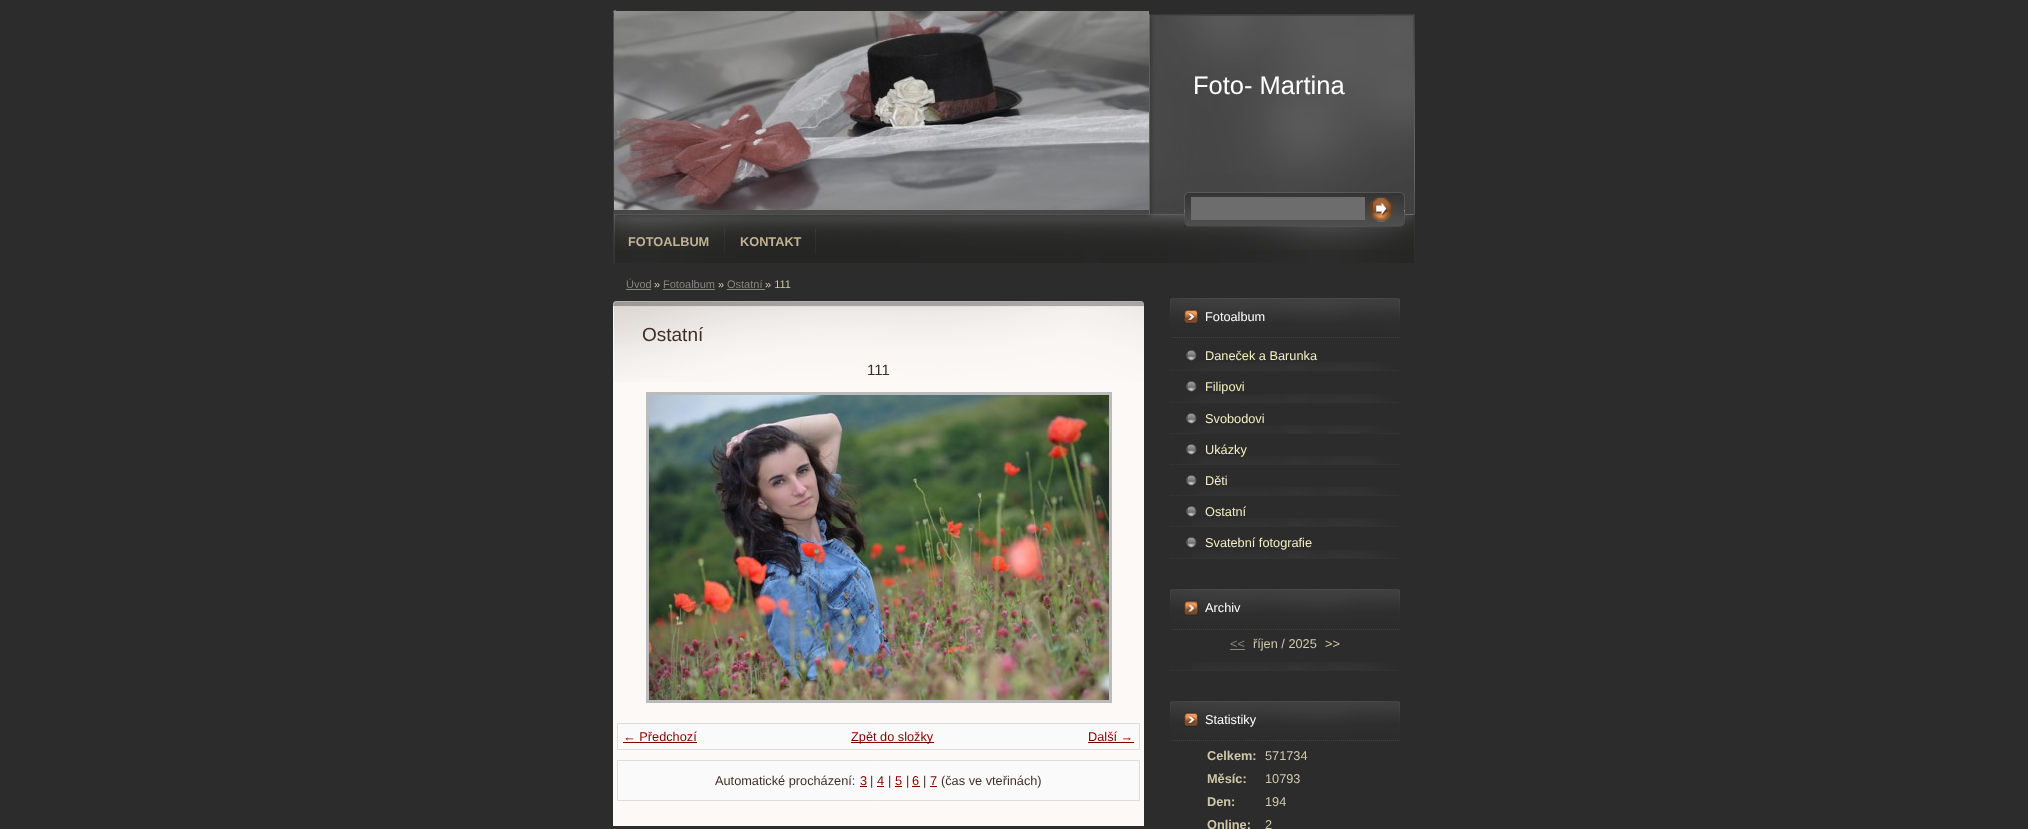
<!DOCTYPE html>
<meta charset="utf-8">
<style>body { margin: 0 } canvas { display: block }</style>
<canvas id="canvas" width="2028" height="829"></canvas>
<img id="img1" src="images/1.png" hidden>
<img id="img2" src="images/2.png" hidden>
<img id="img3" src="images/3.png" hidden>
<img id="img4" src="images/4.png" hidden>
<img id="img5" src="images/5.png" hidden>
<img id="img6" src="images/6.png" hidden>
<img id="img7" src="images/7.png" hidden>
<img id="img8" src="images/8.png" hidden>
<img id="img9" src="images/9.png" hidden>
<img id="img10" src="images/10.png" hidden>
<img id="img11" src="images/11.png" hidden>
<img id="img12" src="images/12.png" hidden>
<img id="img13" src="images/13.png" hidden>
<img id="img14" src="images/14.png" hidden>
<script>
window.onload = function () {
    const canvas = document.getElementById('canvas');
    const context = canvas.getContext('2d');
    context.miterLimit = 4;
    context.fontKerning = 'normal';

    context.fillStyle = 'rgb(43, 44, 43)';
    context.fillRect(0, 0, 2028, 829);
    context.beginPath();
    context.arc(615, 12, 1.5, 0, 2 * Math.PI);
    context.strokeStyle = 'rgb(118, 118, 118)';
    context.stroke();
    context.drawImage(document.getElementById('img1'), 613, 14, 802, 201);
    context.drawImage(document.getElementById('img2'), 614, 11, 535, 199);
    context.drawImage(document.getElementById('img3'), 613, 250, 802, 13);
    context.drawImage(document.getElementById('img4'), 613, 215, 802, 35);
    context.drawImage(document.getElementById('img5'), 724, 229, 1, 25);
    context.drawImage(document.getElementById('img5'), 815, 229, 1, 25);
    context.fillStyle = 'rgb(136, 132, 127)';
    context.fillRect(626, 289, 25, 1);
    context.fillRect(663, 289, 52, 1);
    context.fillRect(727, 289, 38, 1);
    context.fillStyle = 'rgb(252, 249, 247)';
    context.fillRect(613, 382, 531, 444);
    context.drawImage(document.getElementById('img6'), 613, 301, 531, 81);
    context.strokeStyle = 'rgb(187, 187, 187)';
    context.lineWidth = 3;
    context.strokeRect(647.5, 393.5, 463, 308);
    context.drawImage(document.getElementById('img7'), 649, 395, 460, 305);
    context.fillStyle = 'rgb(250, 250, 250)';
    context.beginPath();
    context.rect(617.5, 723.5, 522, 26);
    context.fill();
    context.strokeStyle = 'rgb(221, 221, 221)';
    context.lineWidth = 1;
    context.stroke();
    context.fillStyle = 'rgb(128, 0, 0)';
    context.fillRect(623, 742, 74, 1);
    context.fillRect(851, 742, 83, 1);
    context.fillRect(1088, 742, 46, 1);
    context.fillStyle = 'rgb(250, 250, 250)';
    context.beginPath();
    context.rect(617.5, 760.5, 522, 40);
    context.fill();
    context.stroke();
    context.fillStyle = 'rgb(128, 0, 0)';
    context.fillRect(860, 786, 7, 1);
    context.fillRect(877, 786, 7, 1);
    context.fillRect(895, 786, 7, 1);
    context.fillRect(912, 786, 8, 1);
    context.fillRect(930, 786, 7, 1);
    context.drawImage(document.getElementById('img8'), 1184, 192, 221, 35);
    context.drawImage(document.getElementById('img9'), 1365, 197, 33, 23);
    context.fillStyle = 'rgb(109, 109, 109)';
    context.fillRect(1191, 197, 174, 23);
    context.drawImage(document.getElementById('img10'), 1368, 196, 25, 26);
    context.drawImage(document.getElementById('img11'), 1170, 298, 230, 40);
    context.drawImage(document.getElementById('img12'), 1170, 550, 229, 9);
    context.drawImage(document.getElementById('img12'), 1170, 362, 229, 9);
    context.drawImage(document.getElementById('img13'), 1186, 350, 11, 11);
    context.drawImage(document.getElementById('img12'), 1170, 394, 229, 9);
    context.drawImage(document.getElementById('img13'), 1186, 381, 11, 11);
    context.drawImage(document.getElementById('img12'), 1170, 425, 229, 9);
    context.drawImage(document.getElementById('img13'), 1186, 413, 11, 11);
    context.drawImage(document.getElementById('img12'), 1170, 456, 229, 9);
    context.drawImage(document.getElementById('img13'), 1186, 444, 11, 11);
    context.drawImage(document.getElementById('img12'), 1170, 487, 229, 9);
    context.drawImage(document.getElementById('img13'), 1186, 475, 11, 11);
    context.drawImage(document.getElementById('img12'), 1170, 518, 229, 9);
    context.drawImage(document.getElementById('img13'), 1186, 506, 11, 11);
    context.drawImage(document.getElementById('img13'), 1186, 537, 11, 11);
    context.drawImage(document.getElementById('img14'), 1170, 589, 230, 41);
    context.drawImage(document.getElementById('img12'), 1170, 662, 229, 9);
    context.fillStyle = 'rgb(136, 132, 127)';
    context.fillRect(1230, 649, 15, 1);
    context.drawImage(document.getElementById('img11'), 1170, 701, 230, 40);
    context.font = '25.5px Liberation Sans';
    context.fillStyle = 'rgb(255, 255, 255)';
    context.fillText('Foto- Martina', 1193, 94);
    context.font = 'bold 12.75px Liberation Sans';
    context.fillStyle = 'rgb(194, 178, 148)';
    context.fillText('FOTOALBUM', 628, 246);
    context.fillText('KONTAKT', 740, 246);
    context.font = '11px Liberation Sans';
    context.fillStyle = 'rgb(136, 132, 127)';
    context.fillText('Úvod', 626, 288);
    context.fillStyle = 'rgb(208, 200, 170)';
    context.fillText('»', 654, 288);
    context.fillStyle = 'rgb(136, 132, 127)';
    context.fillText('Fotoalbum', 663, 288);
    context.fillStyle = 'rgb(208, 200, 170)';
    context.fillText('»', 718, 288);
    context.fillStyle = 'rgb(136, 132, 127)';
    context.fillText('Ostatní', 727, 288);
    context.fillStyle = 'rgb(208, 200, 170)';
    context.fillText('» 111', 765, 288);
    context.font = '19px Liberation Sans';
    context.fillStyle = 'rgb(65, 46, 36)';
    context.fillText('Ostatní', 642, 341);
    context.font = '15px Liberation Sans';
    context.fillText('111', 867, 375);
    context.font = '12.75px Liberation Sans';
    context.fillStyle = 'rgb(128, 0, 0)';
    context.fillText('← Předchozí', 623, 741);
    context.fillText('Zpět do složky', 851, 741);
    context.fillText('Další →', 1088, 741);
    context.fillStyle = 'rgb(65, 46, 36)';
    context.fillText('Automatické procházení:', 715, 785);
    context.fillStyle = 'rgb(128, 0, 0)';
    context.fillText('3', 860, 785);
    context.fillStyle = 'rgb(65, 46, 36)';
    context.fillText('|', 870, 785);
    context.fillStyle = 'rgb(128, 0, 0)';
    context.fillText('4', 877, 785);
    context.fillStyle = 'rgb(65, 46, 36)';
    context.fillText('|', 888, 785);
    context.fillStyle = 'rgb(128, 0, 0)';
    context.fillText('5', 895, 785);
    context.fillStyle = 'rgb(65, 46, 36)';
    context.fillText('|', 906, 785);
    context.fillStyle = 'rgb(128, 0, 0)';
    context.fillText('6', 912, 785);
    context.fillStyle = 'rgb(65, 46, 36)';
    context.fillText('|', 923, 785);
    context.fillStyle = 'rgb(128, 0, 0)';
    context.fillText('7', 930, 785);
    context.fillStyle = 'rgb(65, 46, 36)';
    context.fillText('(čas ve vteřinách)', 941, 785);
    context.fillStyle = 'rgb(255, 255, 255)';
    context.fillText('Fotoalbum', 1205, 321);
    context.fillStyle = 'rgb(243, 238, 192)';
    context.fillText('Daneček a Barunka', 1205, 360);
    context.fillText('Filipovi', 1205, 391);
    context.fillText('Svobodovi', 1205, 423);
    context.fillText('Ukázky', 1205, 454);
    context.fillText('Děti', 1205, 485);
    context.fillText('Ostatní', 1205, 516);
    context.fillText('Svatební fotografie', 1205, 547);
    context.fillStyle = 'rgb(255, 255, 255)';
    context.fillText('Archiv', 1205, 612);
    context.fillStyle = 'rgb(136, 132, 127)';
    context.fillText('<<', 1230, 648);
    context.fillStyle = 'rgb(208, 200, 170)';
    context.fillText('říjen / 2025', 1253, 648);
    context.fillText('>>', 1325, 648);
    context.fillStyle = 'rgb(255, 255, 255)';
    context.fillText('Statistiky', 1205, 724);
    context.font = 'bold 12.75px Liberation Sans';
    context.fillStyle = 'rgb(208, 200, 170)';
    context.fillText('Celkem:', 1207, 760);
    context.font = '12.75px Liberation Sans';
    context.fillText('571734', 1265, 760);
    context.font = 'bold 12.75px Liberation Sans';
    context.fillText('Měsíc:', 1207, 783);
    context.font = '12.75px Liberation Sans';
    context.fillText('10793', 1265, 783);
    context.font = 'bold 12.75px Liberation Sans';
    context.fillText('Den:', 1207, 806);
    context.font = '12.75px Liberation Sans';
    context.fillText('194', 1265, 806);
    context.font = 'bold 12.75px Liberation Sans';
    context.fillText('Online:', 1207, 829);
    context.font = '12.75px Liberation Sans';
    context.fillText('2', 1265, 829);
};
</script>
